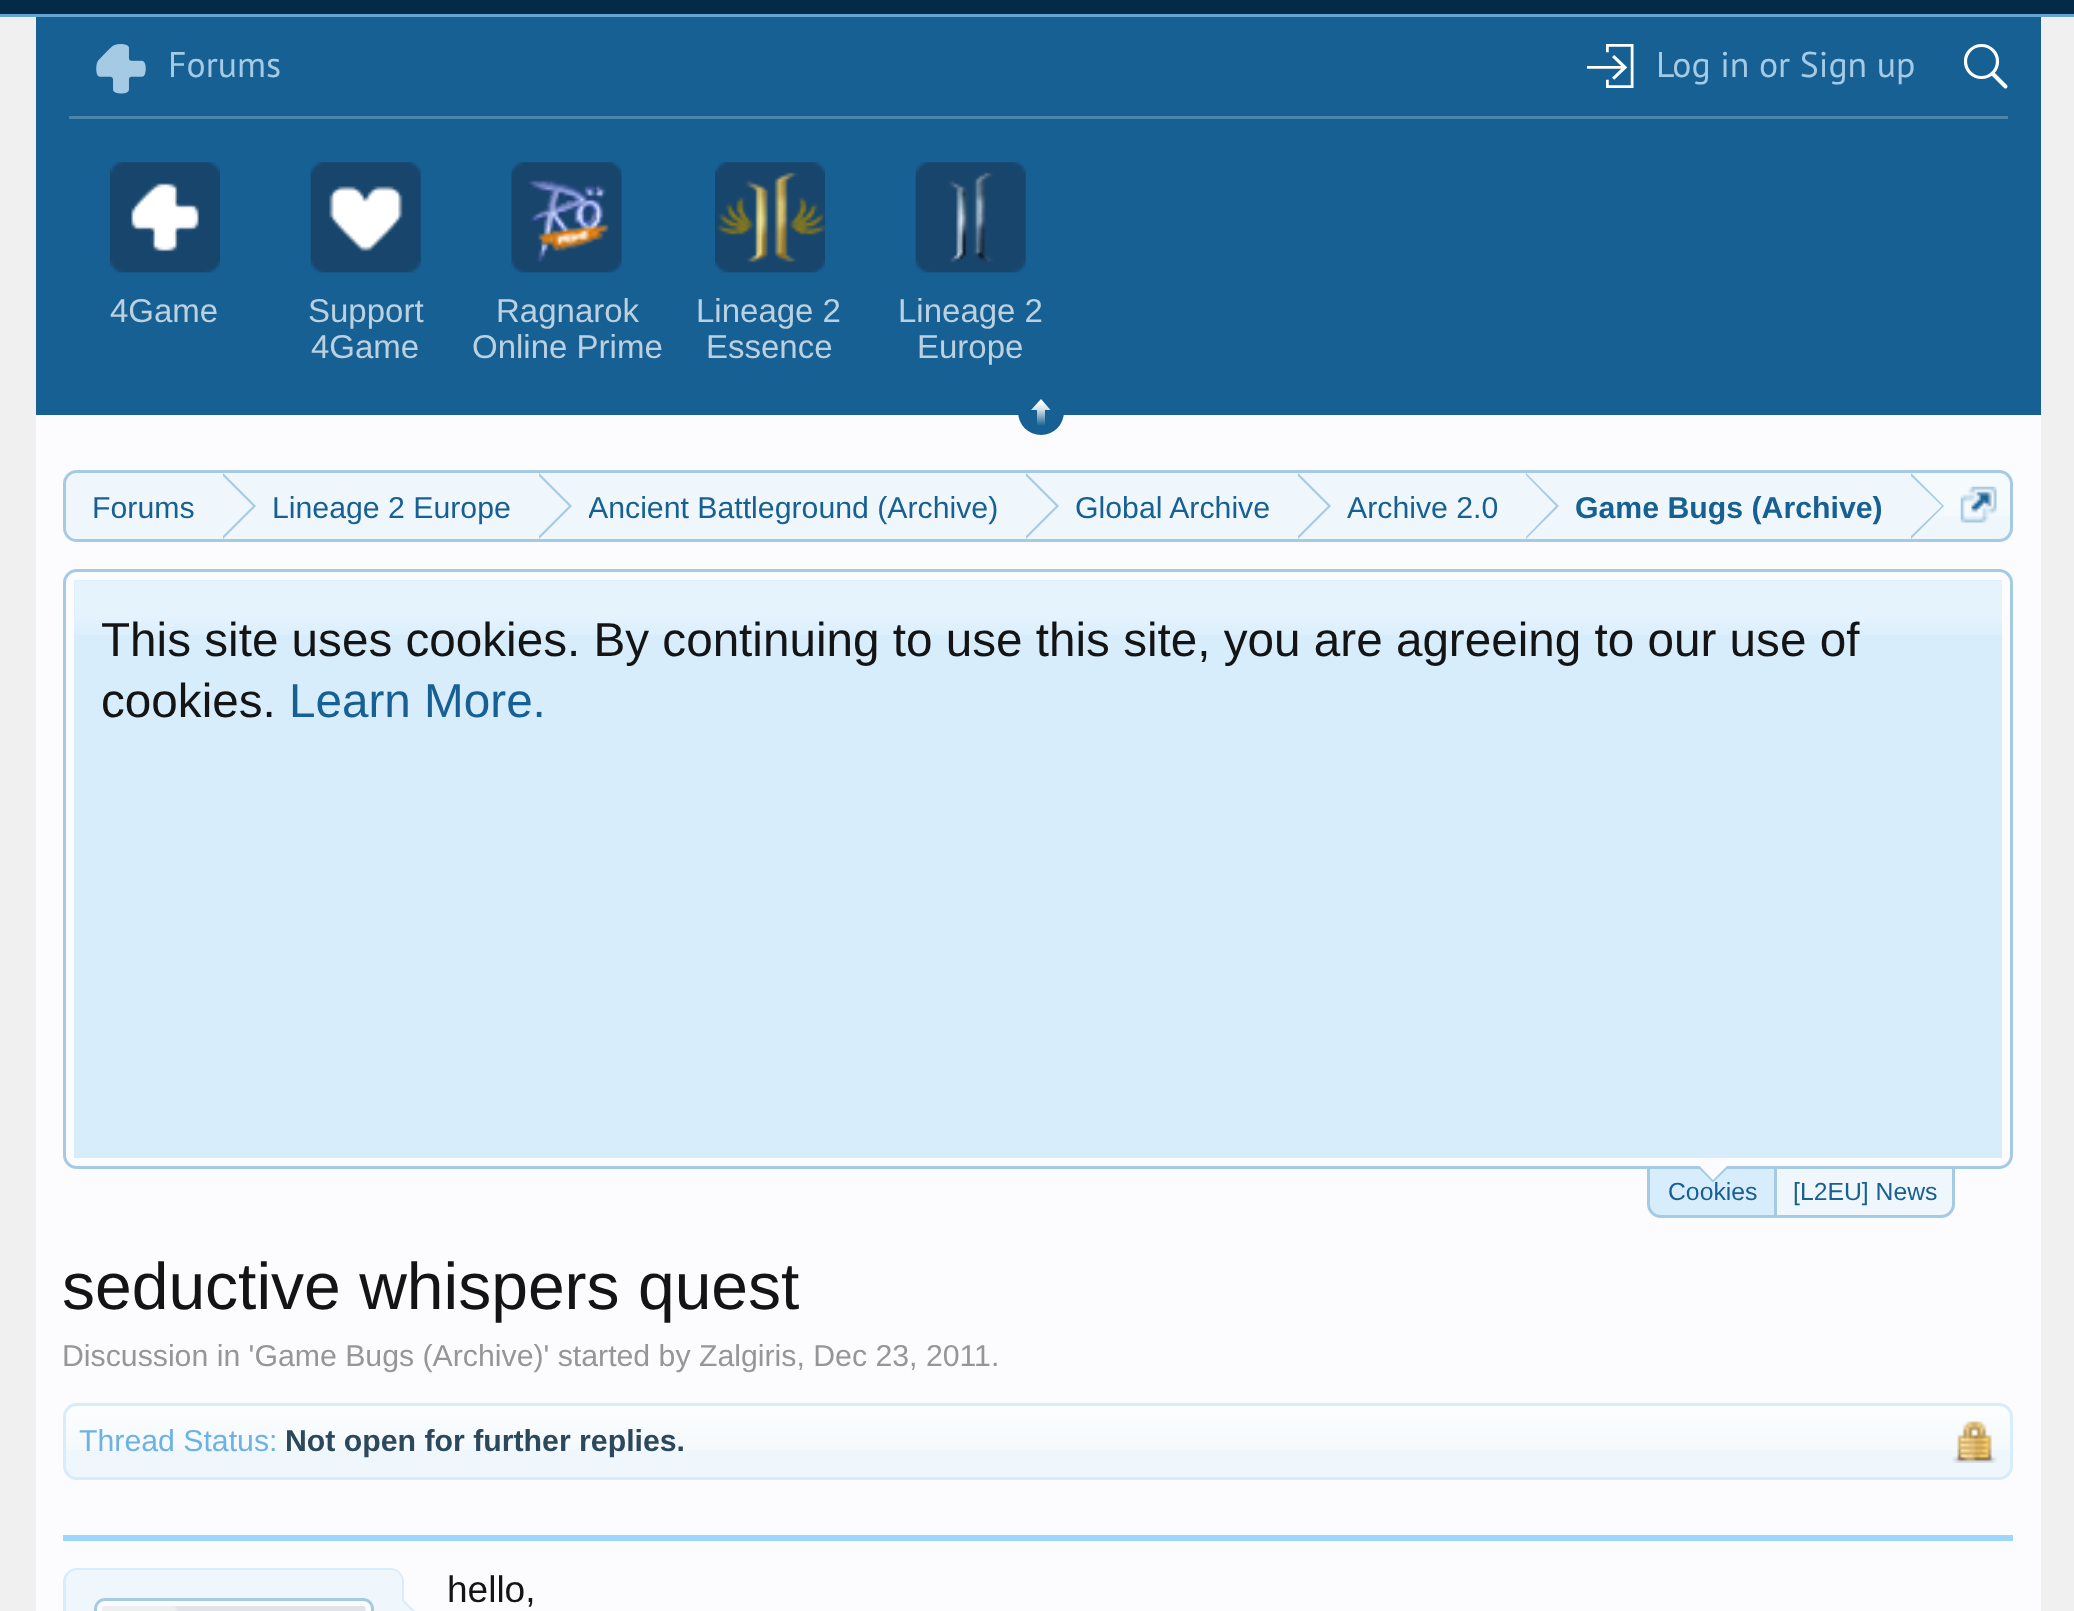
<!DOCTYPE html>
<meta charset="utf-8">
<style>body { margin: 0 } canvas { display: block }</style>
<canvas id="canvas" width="2074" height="1611"></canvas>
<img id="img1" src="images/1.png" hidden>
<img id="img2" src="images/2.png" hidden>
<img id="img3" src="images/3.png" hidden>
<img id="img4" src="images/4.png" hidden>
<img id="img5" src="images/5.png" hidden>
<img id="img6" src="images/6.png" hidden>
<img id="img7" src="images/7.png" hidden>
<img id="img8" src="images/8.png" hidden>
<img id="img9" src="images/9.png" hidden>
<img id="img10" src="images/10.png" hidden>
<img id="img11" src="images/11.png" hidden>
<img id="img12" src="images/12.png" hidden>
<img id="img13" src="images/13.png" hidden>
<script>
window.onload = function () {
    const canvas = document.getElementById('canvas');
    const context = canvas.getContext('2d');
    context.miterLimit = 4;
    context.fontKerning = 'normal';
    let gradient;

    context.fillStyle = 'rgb(240, 240, 240)';
    context.fillRect(0, 0, 2074, 1611);
    context.fillStyle = 'rgb(3, 42, 70)';
    context.fillRect(0, 0, 2074, 14);
    context.fillStyle = 'rgb(101, 165, 209)';
    context.fillRect(0, 14, 2074, 3);
    context.fillStyle = 'rgb(23, 96, 147)';
    context.fillRect(36, 17, 2005, 398);
    context.fillStyle = 'rgb(76, 132, 172)';
    context.fillRect(69, 116, 1939, 3);
    context.drawImage(document.getElementById('img1'), 96, 44, 50, 50);
    context.drawImage(document.getElementById('img2'), 1587, 44, 47, 44);
    context.beginPath();
    context.arc(1981.5, 61.5, 16, 0, 2 * Math.PI);
    context.strokeStyle = 'rgb(255, 255, 255)';
    context.lineWidth = 3.2;
    context.stroke();
    context.beginPath();
    context.moveTo(1992.5, 73.5);
    context.lineTo(2005.5, 86.5);
    context.lineWidth = 4;
    context.lineCap = 'round';
    context.stroke();
    context.fillStyle = 'rgb(252, 252, 255)';
    context.fillRect(36, 415, 2005, 1196);
    context.fillStyle = 'rgb(23, 96, 147)';
    context.beginPath();
    context.roundRect(1018, 388, 46, 47, 23);
    context.fill();
    gradient = context.createLinearGradient(1031, 399, 1031, 426);
    gradient.addColorStop(0.1, 'rgb(255, 255, 255)');
    gradient.addColorStop(0.4, 'rgb(209, 223, 233)');
    gradient.addColorStop(1, 'rgb(23, 96, 147)');
    context.fillStyle = gradient;
    context.beginPath();
    context.moveTo(1041, 399);
    context.lineTo(1031, 410);
    context.lineTo(1037, 410);
    context.lineTo(1037, 426);
    context.lineTo(1045, 426);
    context.lineTo(1045, 410);
    context.lineTo(1050.5, 410);
    context.closePath();
    context.fill();
    context.drawImage(document.getElementById('img3'), 110, 162, 110, 111);
    context.drawImage(document.getElementById('img4'), 310, 162, 111, 111);
    context.drawImage(document.getElementById('img5'), 511, 162, 111, 111);
    context.drawImage(document.getElementById('img6'), 715, 162, 110, 111);
    context.drawImage(document.getElementById('img7'), 915, 162, 111, 111);
    context.fillStyle = 'rgb(240, 247, 252)';
    context.beginPath();
    context.roundRect(63, 470, 1950, 72, 14);
    context.fill();
    context.drawImage(document.getElementById('img8'), 64, 473, 1949, 43);
    context.beginPath();
    context.roundRect(64.5, 471.5, 1947, 69, 12.5);
    context.strokeStyle = 'rgb(165, 202, 228)';
    context.lineWidth = 3;
    context.stroke();
    context.save();
    context.beginPath();
    context.roundRect(66, 473, 1944, 66, 11);
    context.clip();
    context.beginPath();
    context.roundRect(66, 473, 157, 69, [14, 0, 0, 14]);
    context.fill();
    context.restore();
    context.fillRect(223, 473, 1688, 43);
    context.fillStyle = 'rgb(165, 202, 228)';
    context.beginPath();
    context.moveTo(223, 539);
    context.lineTo(223, 473);
    context.lineTo(256, 506);
    context.closePath();
    context.fill();
    context.fillStyle = 'rgb(240, 247, 252)';
    context.beginPath();
    context.moveTo(220, 539);
    context.lineTo(220, 473);
    context.lineTo(253, 506);
    context.closePath();
    context.fill();
    context.fillStyle = 'rgb(165, 202, 228)';
    context.beginPath();
    context.moveTo(539, 539);
    context.lineTo(539, 473);
    context.lineTo(572, 506);
    context.closePath();
    context.fill();
    context.fillStyle = 'rgb(240, 247, 252)';
    context.beginPath();
    context.moveTo(536, 539);
    context.lineTo(536, 473);
    context.lineTo(569, 506);
    context.closePath();
    context.fill();
    context.fillStyle = 'rgb(165, 202, 228)';
    context.beginPath();
    context.moveTo(1026, 539);
    context.lineTo(1026, 473);
    context.lineTo(1059, 506);
    context.closePath();
    context.fill();
    context.fillStyle = 'rgb(240, 247, 252)';
    context.beginPath();
    context.moveTo(1023, 539);
    context.lineTo(1023, 473);
    context.lineTo(1056, 506);
    context.closePath();
    context.fill();
    context.fillStyle = 'rgb(165, 202, 228)';
    context.beginPath();
    context.moveTo(1298, 539);
    context.lineTo(1298, 473);
    context.lineTo(1331, 506);
    context.closePath();
    context.fill();
    context.fillStyle = 'rgb(240, 247, 252)';
    context.beginPath();
    context.moveTo(1295, 539);
    context.lineTo(1295, 473);
    context.lineTo(1328, 506);
    context.closePath();
    context.fill();
    context.fillStyle = 'rgb(165, 202, 228)';
    context.beginPath();
    context.moveTo(1526, 539);
    context.lineTo(1526, 473);
    context.lineTo(1559, 506);
    context.closePath();
    context.fill();
    context.fillStyle = 'rgb(240, 247, 252)';
    context.beginPath();
    context.moveTo(1524, 539);
    context.lineTo(1524, 473);
    context.lineTo(1556, 506);
    context.closePath();
    context.fill();
    context.fillStyle = 'rgb(165, 202, 228)';
    context.beginPath();
    context.moveTo(1911, 539);
    context.lineTo(1911, 473);
    context.lineTo(1944, 506);
    context.closePath();
    context.fill();
    context.fillStyle = 'rgb(240, 247, 252)';
    context.beginPath();
    context.moveTo(1908, 539);
    context.lineTo(1908, 473);
    context.lineTo(1942, 506);
    context.closePath();
    context.fill();
    context.drawImage(document.getElementById('img9'), 1960, 486, 37, 37);
    context.beginPath();
    context.roundRect(64.5, 570.5, 1947, 597, 12.5);
    context.stroke();
    context.fillStyle = 'rgb(215, 237, 252)';
    context.fillRect(74, 580, 1928, 578);
    context.drawImage(document.getElementById('img10'), 74, 580, 1928, 55);
    context.beginPath();
    context.roundRect(1648.5, 1167.5, 127, 49, [0, 0, 0, 12.5]);
    context.fill();
    context.stroke();
    context.fillStyle = 'rgb(240, 247, 252)';
    context.beginPath();
    context.roundRect(1775.5, 1167.5, 178, 49, [0, 0, 12.5, 0]);
    context.fill();
    context.stroke();
    context.beginPath();
    context.roundRect(63, 1403, 1950, 77, 14);
    context.fill();
    context.drawImage(document.getElementById('img11'), 63, 1405, 1950, 45);
    context.beginPath();
    context.roundRect(64.5, 1404.5, 1947, 74, 12.5);
    context.strokeStyle = 'rgb(215, 237, 252)';
    context.stroke();
    context.drawImage(document.getElementById('img12'), 1952, 1421, 45, 42);
    context.fillStyle = 'rgb(156, 215, 255)';
    context.fillRect(63, 1535, 1950, 6);
    context.beginPath();
    context.roundRect(64.5, 1569.5, 338, 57, 12.5);
    context.stroke();
    context.fillStyle = 'rgb(240, 247, 252)';
    context.beginPath();
    context.roundRect(66, 1570, 336, 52, 11);
    context.fill();
    context.fillStyle = 'rgb(252, 252, 255)';
    context.beginPath();
    context.roundRect(95.5, 1599.5, 277, 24, 9.5);
    context.fill();
    context.strokeStyle = 'rgb(165, 202, 228)';
    context.stroke();
    context.drawImage(document.getElementById('img13'), 102, 1606, 264, 5);
    context.fillStyle = 'rgb(215, 237, 252)';
    context.beginPath();
    context.moveTo(402, 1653);
    context.lineTo(402, 1598);
    context.lineTo(429, 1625);
    context.closePath();
    context.fill();
    context.fillStyle = 'rgb(240, 247, 252)';
    context.beginPath();
    context.moveTo(399, 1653);
    context.lineTo(399, 1598);
    context.lineTo(426, 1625);
    context.closePath();
    context.fill();
    context.font = '35.75px PT Sans';
    context.fillStyle = 'rgb(165, 202, 228)';
    context.fillText('Forums', 168, 77);
    context.fillText('Log in or Sign up', 1656, 77);
    context.font = '33px Liberation Sans';
    context.fillStyle = 'rgb(188, 209, 224)';
    context.fillText('4Game', 110, 322);
    context.fillText('Support', 308, 322);
    context.fillText('4Game', 311, 358);
    context.fillText('Ragnarok', 496, 322);
    context.fillText('Online Prime', 472, 358);
    context.fillText('Lineage 2', 696, 322);
    context.fillText('Essence', 706, 358);
    context.fillText('Lineage 2', 898, 322);
    context.fillText('Europe', 917, 358);
    context.font = '30.25px Liberation Sans';
    context.fillStyle = 'rgb(23, 96, 147)';
    context.fillText('Forums', 92, 518);
    context.fillText('Lineage 2 Europe', 272, 518);
    context.save();
    context.beginPath();
    context.rect(589, 473, 409, 66);
    context.clip();
    context.fillText('Ancient Battleground (Archive)', 588, 518);
    context.restore();
    context.fillText('Global Archive', 1075, 518);
    context.fillText('Archive 2.0', 1347, 518);
    context.font = 'bold 30.25px Liberation Sans';
    context.fillText('Game Bugs (Archive)', 1575, 518);
    context.font = '47.65px Liberation Sans';
    context.fillStyle = 'rgb(20, 20, 20)';
    context.fillText('This site uses cookies. By continuing to use this site, you are agreeing to our use of', 101, 656);
    context.fillText('cookies.', 101, 717);
    context.fillStyle = 'rgb(23, 96, 147)';
    context.fillText('Learn More.', 289, 717);
    context.font = '24.75px Liberation Sans';
    context.fillText('Cookies', 1668, 1200);
    context.fillStyle = 'rgb(165, 202, 228)';
    context.beginPath();
    context.moveTo(1699.5, 1169);
    context.lineTo(1727, 1169);
    context.lineTo(1713, 1182.5);
    context.closePath();
    context.fill();
    context.fillStyle = 'rgb(252, 252, 255)';
    context.beginPath();
    context.moveTo(1699.5, 1166);
    context.lineTo(1727, 1166);
    context.lineTo(1713, 1180);
    context.closePath();
    context.fill();
    context.fillStyle = 'rgb(23, 96, 147)';
    context.fillText('[L2EU] News', 1793, 1200);
    context.font = '66px Liberation Sans';
    context.fillStyle = 'rgb(20, 20, 20)';
    context.fillText('seductive whispers quest', 62, 1309);
    context.font = '30.25px Liberation Sans';
    context.fillStyle = 'rgb(150, 150, 150)';
    context.fillText('Discussion in \'Game Bugs (Archive)\' started by Zalgiris, Dec 23, 2011.', 62, 1366);
    context.fillStyle = 'rgb(108, 178, 228)';
    context.fillText('Thread Status:', 79, 1451);
    context.font = 'bold 30.25px Liberation Sans';
    context.fillStyle = 'rgb(43, 72, 92)';
    context.fillText('Not open for further replies.', 285, 1451);
    context.font = '37px Liberation Sans';
    context.fillStyle = 'rgb(20, 20, 20)';
    context.fillText('hello,', 447, 1602);
};
</script>
